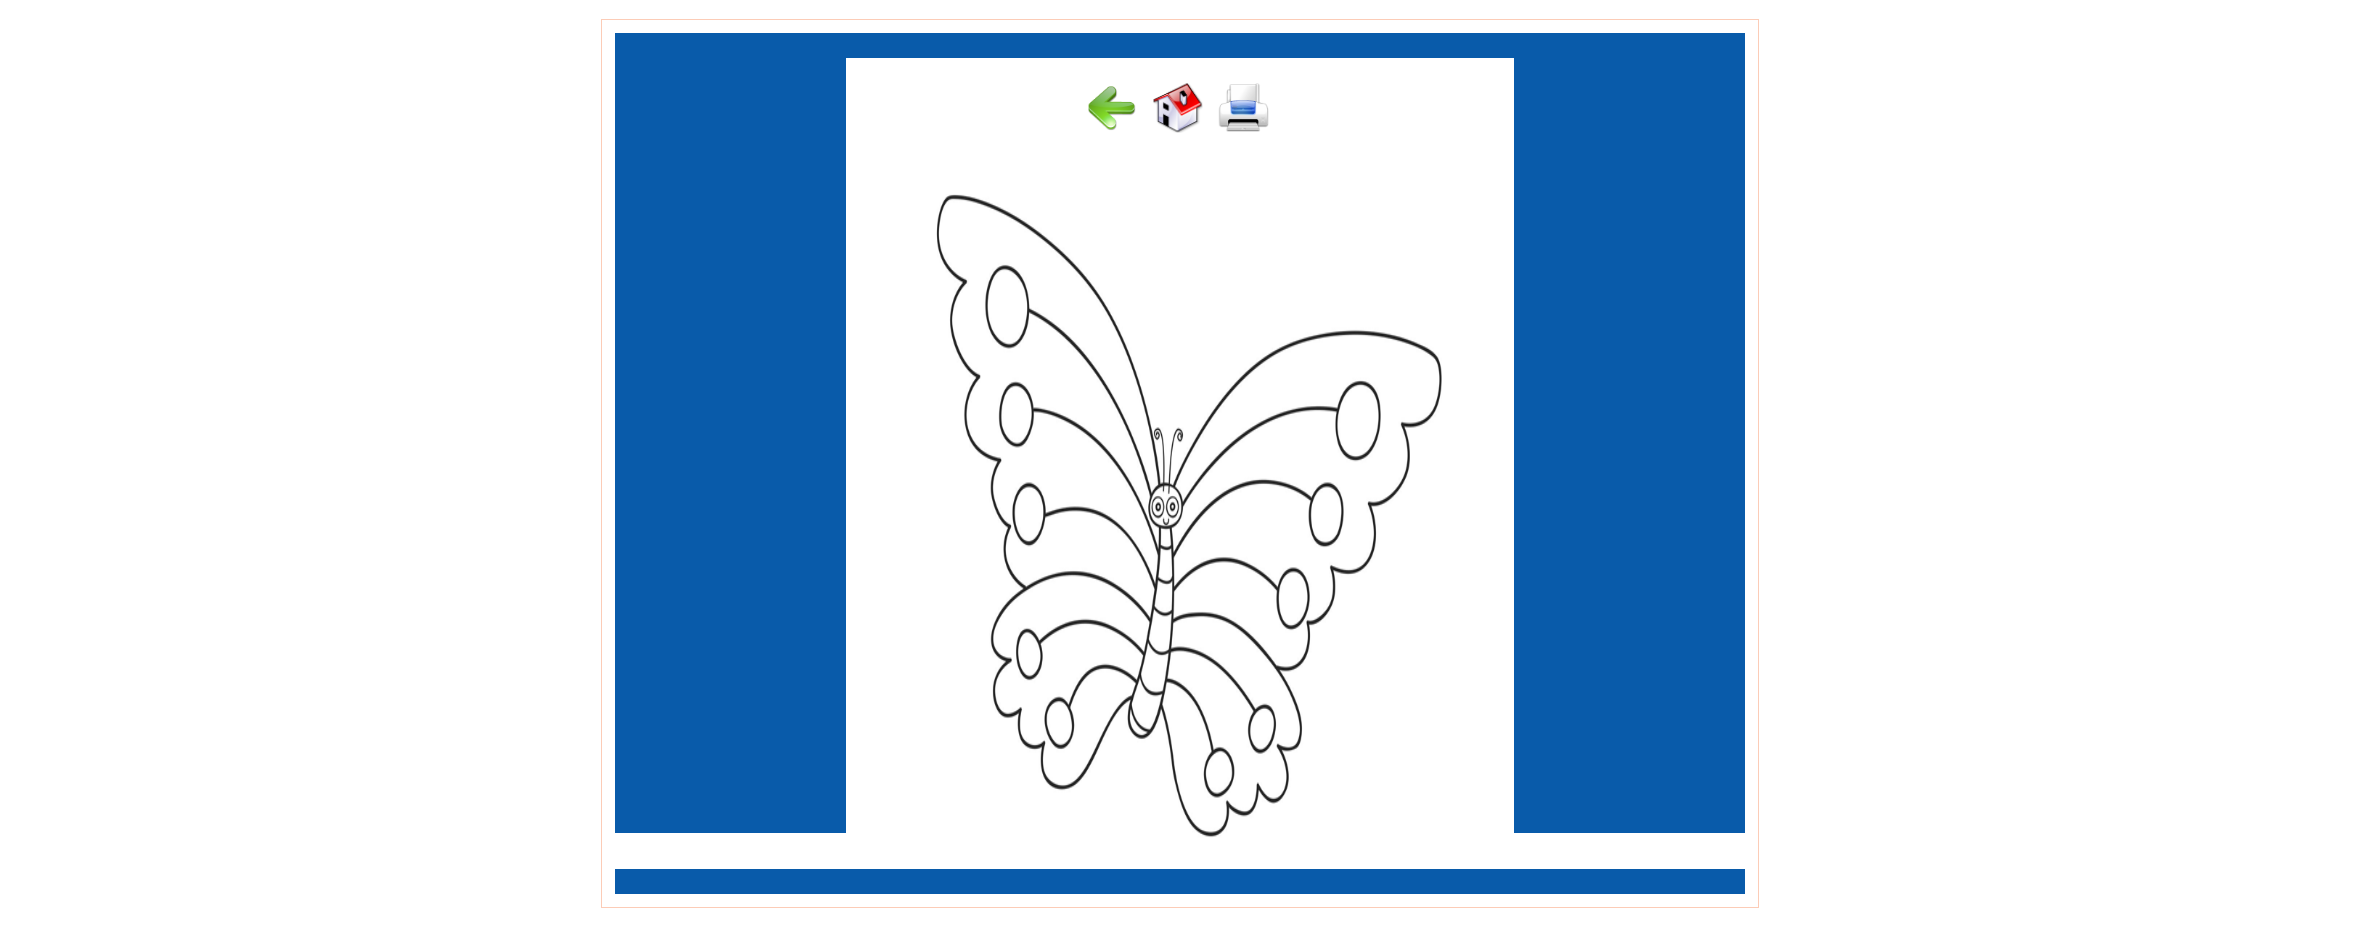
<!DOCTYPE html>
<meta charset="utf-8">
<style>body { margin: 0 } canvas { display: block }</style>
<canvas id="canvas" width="2360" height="951"></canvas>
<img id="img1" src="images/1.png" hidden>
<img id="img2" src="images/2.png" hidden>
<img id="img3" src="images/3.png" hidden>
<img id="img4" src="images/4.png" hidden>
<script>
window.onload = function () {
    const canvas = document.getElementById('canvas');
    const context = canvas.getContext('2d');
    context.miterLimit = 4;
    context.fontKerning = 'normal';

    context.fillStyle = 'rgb(255, 255, 255)';
    context.fillRect(0, 0, 2360, 951);
    context.strokeStyle = 'rgb(252, 204, 183)';
    context.strokeRect(601.5, 19.5, 1157, 888);
    context.fillStyle = 'rgb(9, 91, 170)';
    context.fillRect(615, 33, 1130, 25);
    context.fillRect(615, 58, 231, 775);
    context.drawImage(document.getElementById('img1'), 1088, 86, 48, 45);
    context.drawImage(document.getElementById('img2'), 1153, 83, 50, 50);
    context.drawImage(document.getElementById('img3'), 1218, 83, 51, 49);
    context.drawImage(document.getElementById('img4'), 936, 194, 506, 644);
    context.fillRect(1514, 58, 231, 775);
    context.fillRect(615, 869, 1130, 25);
};
</script>
